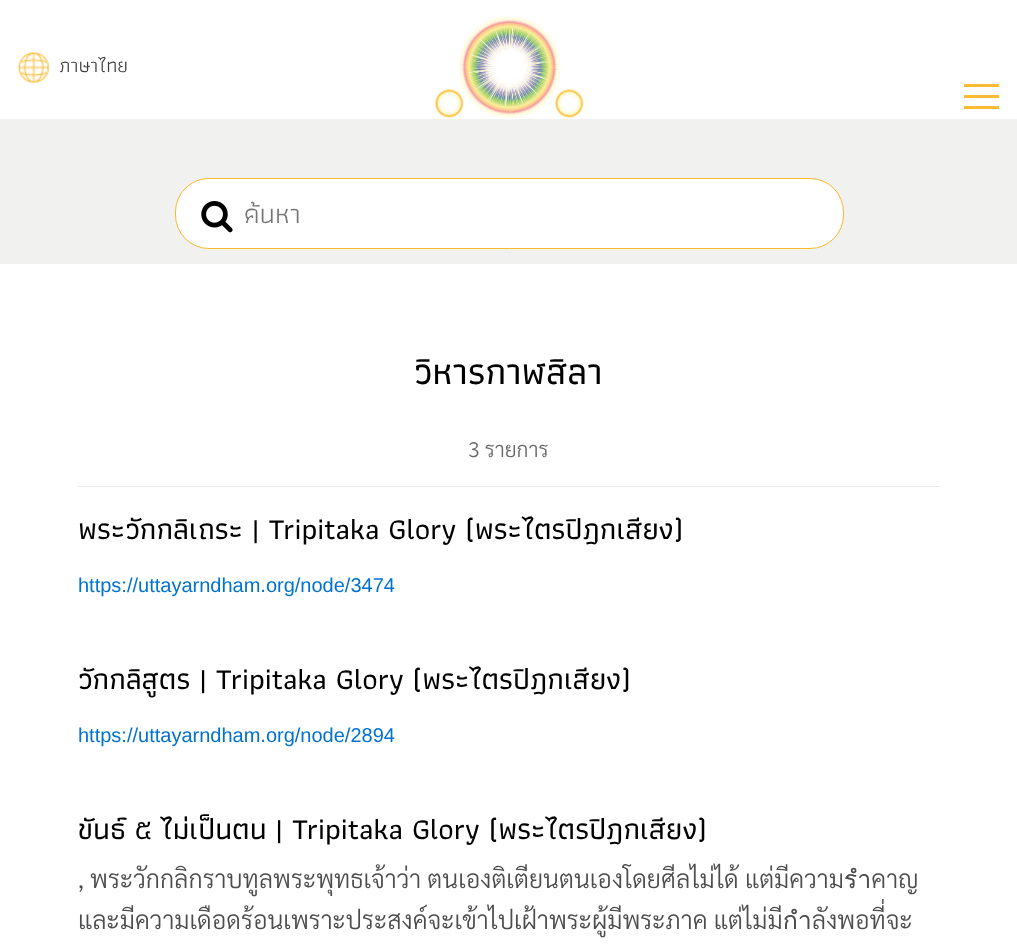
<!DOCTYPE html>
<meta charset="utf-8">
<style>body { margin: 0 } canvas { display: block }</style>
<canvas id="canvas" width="1017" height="948"></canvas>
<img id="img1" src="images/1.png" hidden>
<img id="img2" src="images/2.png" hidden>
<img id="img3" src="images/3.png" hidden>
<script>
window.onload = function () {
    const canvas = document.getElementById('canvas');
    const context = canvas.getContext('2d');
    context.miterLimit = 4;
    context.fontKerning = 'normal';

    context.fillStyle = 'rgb(255, 255, 255)';
    context.fillRect(0, 0, 1017, 948);
    context.drawImage(document.getElementById('img1'), 18, 52, 31, 31);
    context.fillStyle = 'rgb(241, 241, 240)';
    context.fillRect(0, 119, 1017, 145);
    context.drawImage(document.getElementById('img2'), 434, 15, 150, 105);
    context.fillStyle = 'rgb(251, 187, 51)';
    context.fillRect(964, 84, 35, 3);
    context.fillRect(964, 95, 35, 3);
    context.fillRect(964, 106, 35, 3);
    context.fillStyle = 'rgb(255, 255, 255)';
    context.beginPath();
    context.roundRect(175.5, 178.5, 668, 70, 33.5);
    context.fill();
    context.strokeStyle = 'rgb(251, 184, 41)';
    context.stroke();
    context.drawImage(document.getElementById('img3'), 201, 201, 32, 32);
    context.fillStyle = 'rgb(233, 233, 233)';
    context.fillRect(78, 486, 862, 1);
    context.font = '20px athiti';
    context.fillStyle = 'rgb(60, 60, 60)';
    context.fillText('ภาษาไทย', 59, 72);
    context.save();
    context.beginPath();
    context.rect(245, 191, 555, 44);
    context.clip();
    context.font = '27.5px athiti';
    context.fillStyle = 'rgb(117, 117, 117)';
    context.fillText('ค้นหา', 244, 223);
    context.restore();
    context.font = '500 37.5px Athiti';
    context.fillStyle = 'rgb(0, 0, 0)';
    context.fillText('วิหารกาฬสิลา', 414, 384);
    context.font = '300 21px Sarabun';
    context.fillStyle = 'rgb(105, 105, 105)';
    context.fillText('3 รายการ', 468, 457);
    context.font = '500 30px Athiti';
    context.fillStyle = 'rgb(0, 0, 0)';
    context.fillText('พระวักกลิเถระ | Tripitaka Glory (พระไตรปิฎกเสียง)', 78, 539);
    context.font = '20px Liberation Sans';
    context.fillStyle = 'rgb(0, 114, 208)';
    context.fillText('https://uttayarndham.org/node/3474', 78, 592);
    context.font = '500 30px Athiti';
    context.fillStyle = 'rgb(0, 0, 0)';
    context.fillText('วักกลิสูตร | Tripitaka Glory (พระไตรปิฎกเสียง)', 78, 689);
    context.font = '20px Liberation Sans';
    context.fillStyle = 'rgb(0, 114, 208)';
    context.fillText('https://uttayarndham.org/node/2894', 78, 742);
    context.font = '500 30px Athiti';
    context.fillStyle = 'rgb(0, 0, 0)';
    context.fillText('ขันธ์ ๕ ไม่เป็นตน | Tripitaka Glory (พระไตรปิฎกเสียง)', 78, 839);
    context.font = '300 25px Sarabun';
    context.fillStyle = 'rgb(76, 76, 78)';
    context.fillText(', พระวักกลิกราบทูลพระพุทธเจ้าว่า ตนเองติเตียนตนเองโดยศีลไม่ได้ แต่มีความรำคาญ', 78, 888);
    context.fillText('และมีความเดือดร้อนเพราะประสงค์จะเข้าไปเฝ้าพระผู้มีพระภาค แต่ไม่มีกำลังพอที่จะ', 78, 929);
};
</script>
